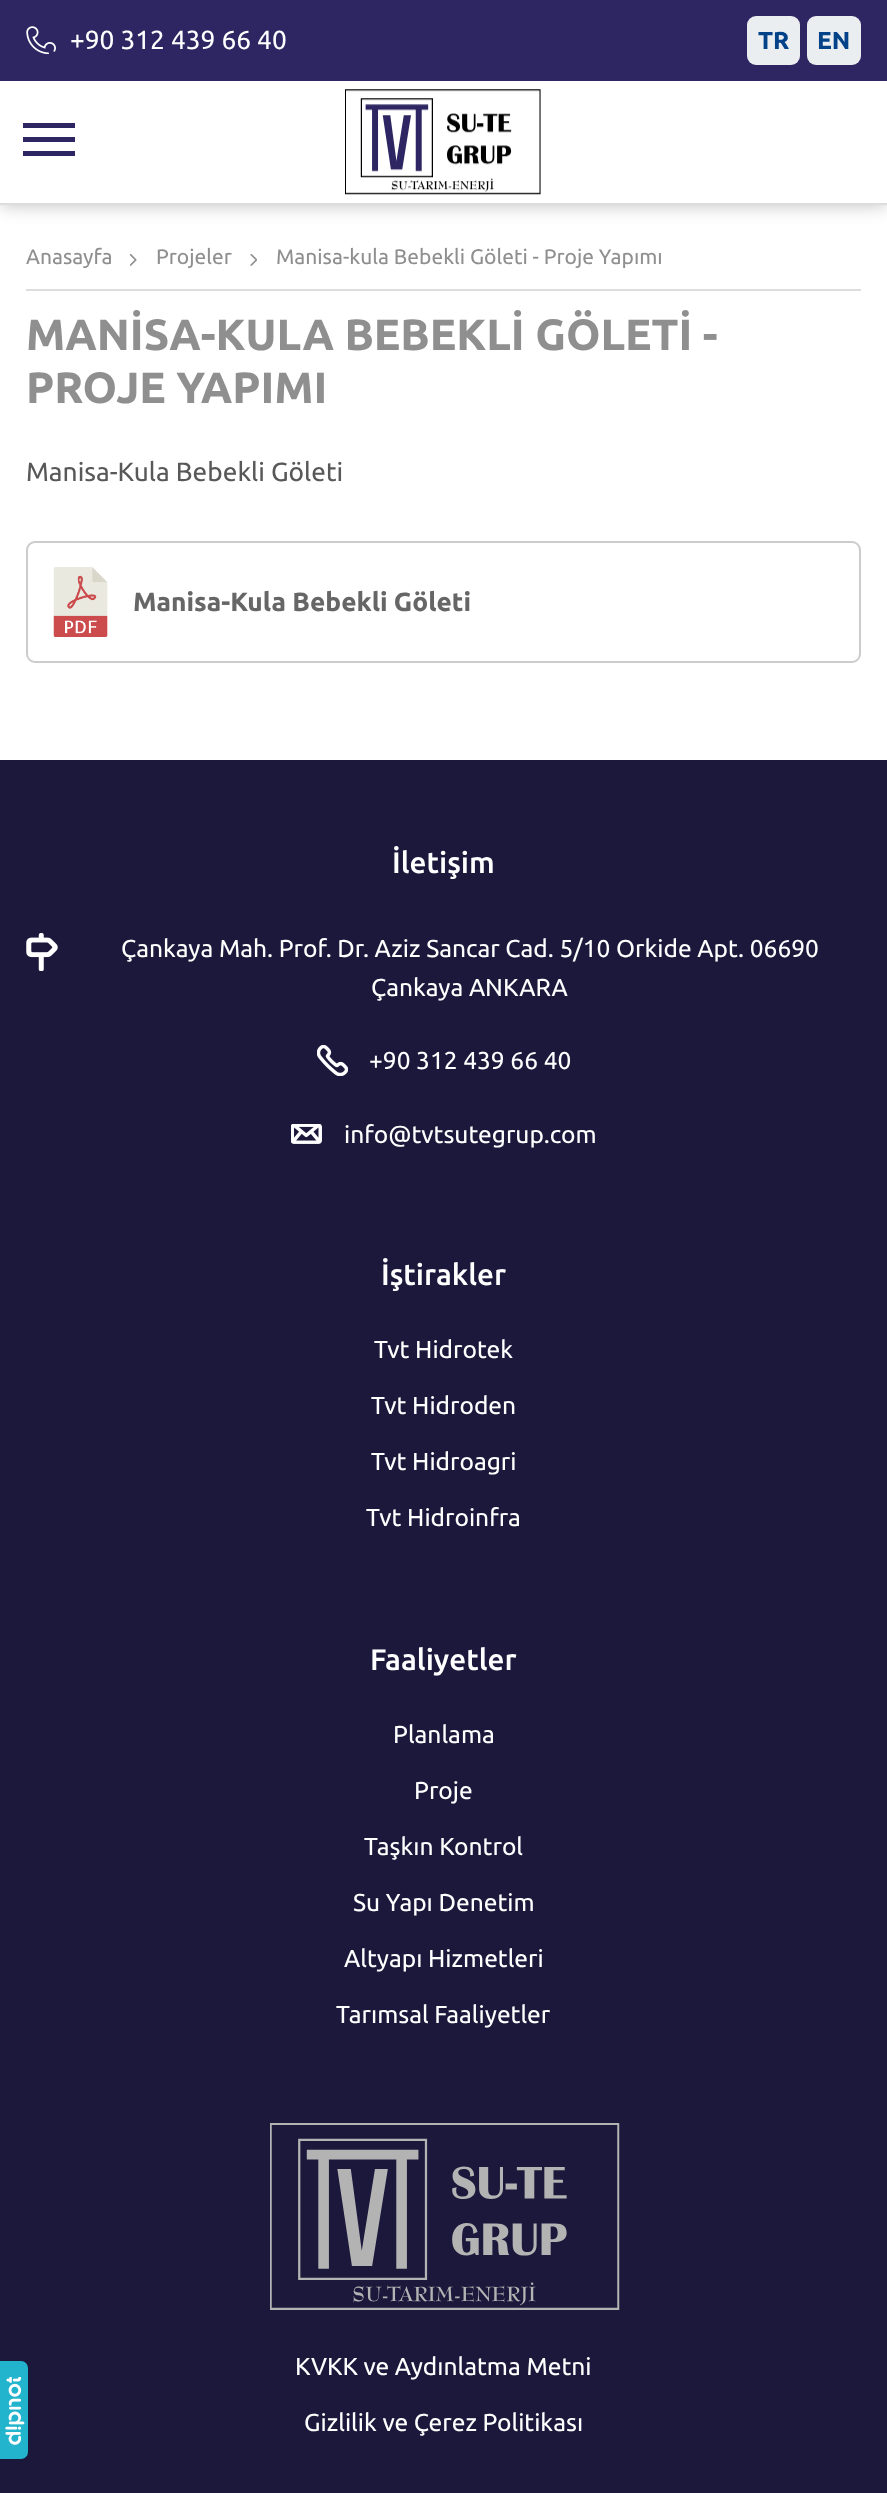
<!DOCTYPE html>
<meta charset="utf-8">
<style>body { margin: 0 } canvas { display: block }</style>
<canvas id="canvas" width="887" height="2493"></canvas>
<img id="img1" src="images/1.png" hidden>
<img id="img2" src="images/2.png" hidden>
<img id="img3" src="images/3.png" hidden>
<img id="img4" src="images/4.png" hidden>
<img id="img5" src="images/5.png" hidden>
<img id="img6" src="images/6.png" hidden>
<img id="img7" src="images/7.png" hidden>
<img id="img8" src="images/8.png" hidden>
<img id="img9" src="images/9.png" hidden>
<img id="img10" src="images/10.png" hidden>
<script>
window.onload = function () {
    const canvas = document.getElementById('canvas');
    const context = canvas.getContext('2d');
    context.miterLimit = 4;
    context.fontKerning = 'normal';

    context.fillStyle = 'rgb(255, 255, 255)';
    context.fillRect(0, 0, 887, 2493);
    context.fillStyle = 'rgba(0, 0, 0, 0.25)';
    context.filter = 'blur(9px)';
    context.beginPath();
    context.rect(0, 0, 887, 205);
    context.fill();
    context.filter = 'none';
    context.fillStyle = 'rgb(255, 255, 255)';
    context.fillRect(0, 81, 887, 122);
    context.fillStyle = 'rgb(45, 38, 98)';
    context.fillRect(0, 0, 887, 81);
    context.drawImage(document.getElementById('img1'), 26, 26, 30, 28);
    context.fillStyle = 'rgb(235, 238, 240)';
    context.beginPath();
    context.roundRect(747, 16, 53, 49, 9);
    context.fill();
    context.beginPath();
    context.roundRect(807, 16, 54, 49, 9);
    context.fill();
    context.fillStyle = 'rgb(221, 221, 221)';
    context.fillRect(0, 203, 887, 2);
    context.drawImage(document.getElementById('img2'), 345, 89, 196, 106);
    context.fillStyle = 'rgb(45, 38, 98)';
    context.fillRect(23, 123, 52, 5);
    context.fillRect(23, 137, 52, 5);
    context.fillRect(23, 151, 52, 5);
    context.fillStyle = 'rgb(221, 221, 221)';
    context.fillRect(26, 289, 835, 2);
    context.drawImage(document.getElementById('img3'), 130, 254, 7, 12);
    context.drawImage(document.getElementById('img4'), 250, 254, 7, 12);
    context.drawImage(document.getElementById('img5'), 53, 567, 55, 70);
    context.beginPath();
    context.roundRect(27, 542, 833, 120, 8);
    context.strokeStyle = 'rgb(204, 204, 204)';
    context.lineWidth = 2;
    context.stroke();
    context.fillStyle = 'rgb(28, 24, 60)';
    context.fillRect(0, 760, 887, 1733);
    context.fillStyle = 'rgb(34, 180, 205)';
    context.beginPath();
    context.roundRect(0, 2361, 28, 98, [0, 7, 7, 0]);
    context.fill();
    context.drawImage(document.getElementById('img6'), 5, 2377, 20, 68);
    context.drawImage(document.getElementById('img7'), 26, 933, 32, 38);
    context.drawImage(document.getElementById('img8'), 317, 1045, 31, 31);
    context.drawImage(document.getElementById('img9'), 291, 1124, 31, 20);
    context.drawImage(document.getElementById('img10'), 270, 2123, 350, 187);
    context.font = '26.25px Ubuntu';
    context.fillStyle = 'rgb(255, 255, 255)';
    context.fillText('+90 312 439 66 40', 70, 49);
    context.font = 'bold 24.5px Ubuntu';
    context.fillStyle = 'rgb(1, 66, 137)';
    context.fillText('TR', 758, 49);
    context.fillText('EN', 817, 49);
    context.font = '21px Ubuntu';
    context.fillStyle = 'rgb(143, 143, 143)';
    context.fillText('Anasayfa', 26, 264);
    context.fillText('Projeler', 156, 264);
    context.fillText('Manisa-kula Bebekli Göleti - Proje Yapımı', 276, 264);
    context.font = 'bold 43.75px Ubuntu';
    context.fillText('MANİSA-KULA BEBEKLİ GÖLETİ -', 26, 350);
    context.fillText('PROJE YAPIMI', 26, 403);
    context.font = '26.25px Ubuntu';
    context.fillStyle = 'rgb(88, 88, 88)';
    context.fillText('Manisa-Kula Bebekli Göleti', 26, 481);
    context.font = 'bold 26.25px Ubuntu';
    context.fillStyle = 'rgb(102, 102, 102)';
    context.fillText('Manisa-Kula Bebekli Göleti', 133, 611);
    context.font = '500 29.75px Ubuntu';
    context.fillStyle = 'rgb(255, 255, 255)';
    context.fillText('İletişim', 392, 873);
    context.font = '24.5px Ubuntu';
    context.fillText('Çankaya Mah. Prof. Dr. Aziz Sancar Cad. 5/10 Orkide Apt. 06690', 121, 957);
    context.fillText('Çankaya ANKARA', 371, 996);
    context.fillText('+90 312 439 66 40', 369, 1069);
    context.fillText('info@tvtsutegrup.com', 344, 1143);
    context.font = '500 29.75px Ubuntu';
    context.fillText('İştirakler', 381, 1285);
    context.font = '24.5px Ubuntu';
    context.fillText('Tvt Hidrotek', 374, 1358);
    context.fillText('Tvt Hidroden', 371, 1414);
    context.fillText('Tvt Hidroagri', 371, 1470);
    context.fillText('Tvt Hidroinfra', 366, 1526);
    context.font = '500 29.75px Ubuntu';
    context.fillText('Faaliyetler', 370, 1670);
    context.font = '24.5px Ubuntu';
    context.fillText('Planlama', 393, 1743);
    context.fillText('Proje', 414, 1799);
    context.fillText('Taşkın Kontrol', 364, 1855);
    context.fillText('Su Yapı Denetim', 353, 1911);
    context.fillText('Altyapı Hizmetleri', 344, 1967);
    context.fillText('Tarımsal Faaliyetler', 336, 2023);
    context.fillText('KVKK ve Aydınlatma Metni', 295, 2375);
    context.fillText('Gizlilik ve Çerez Politikası', 304, 2431);
};
</script>
